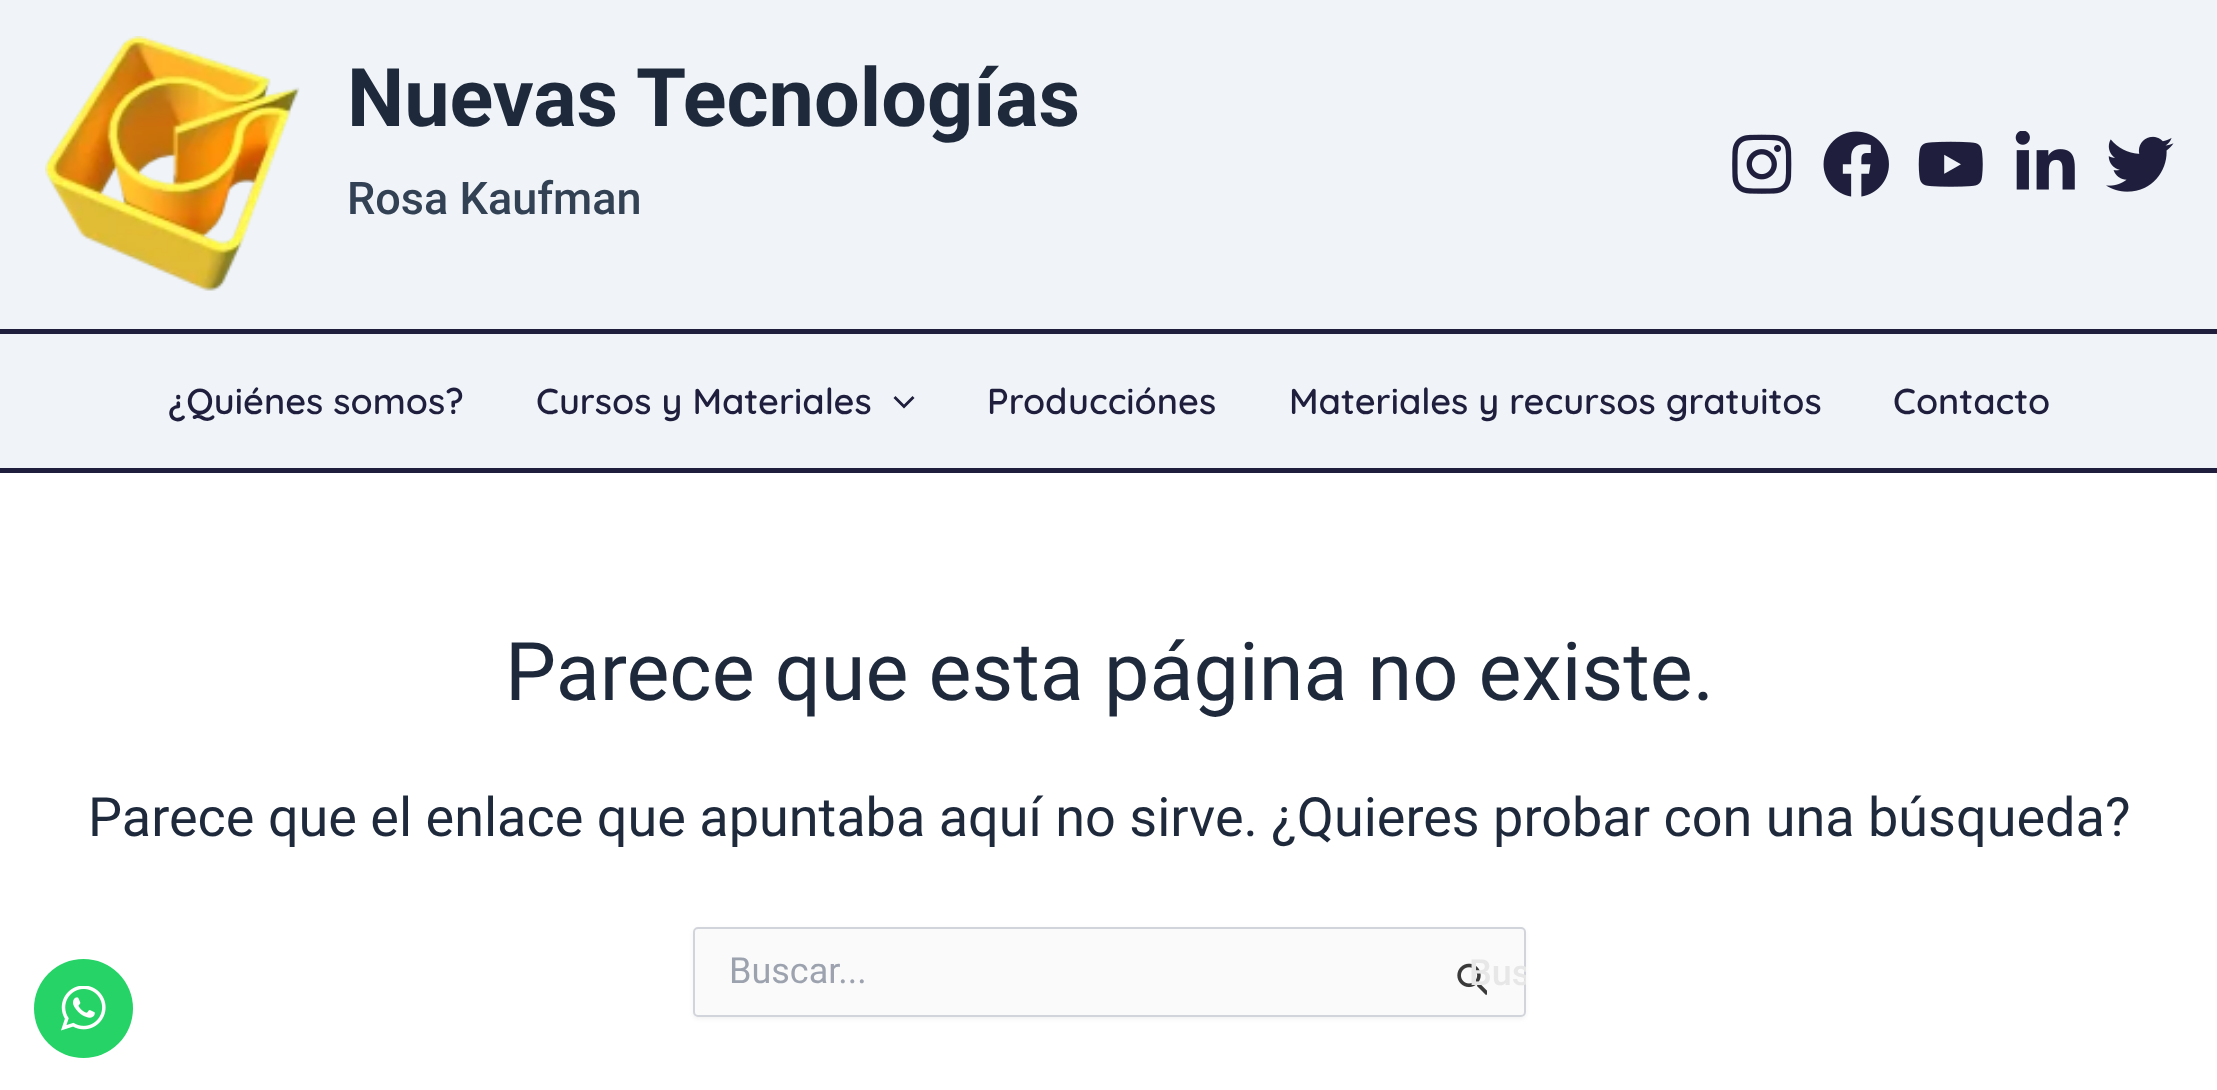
<!DOCTYPE html>
<meta charset="utf-8">
<style>body { margin: 0 } canvas { display: block }</style>
<canvas id="canvas" width="2217" height="1090"></canvas>
<img id="img1" src="images/1.png" hidden>
<img id="img2" src="images/2.png" hidden>
<img id="img3" src="images/3.png" hidden>
<img id="img4" src="images/4.png" hidden>
<img id="img5" src="images/5.png" hidden>
<img id="img6" src="images/6.png" hidden>
<img id="img7" src="images/7.png" hidden>
<img id="img8" src="images/8.png" hidden>
<script>
window.onload = function () {
    const canvas = document.getElementById('canvas');
    const context = canvas.getContext('2d');
    context.miterLimit = 4;
    context.fontKerning = 'normal';

    context.fillStyle = 'rgb(255, 255, 255)';
    context.fillRect(0, 0, 2217, 1090);
    context.fillStyle = 'rgb(240, 244, 248)';
    context.fillRect(0, 0, 2217, 329);
    context.fillStyle = 'rgb(31, 31, 61)';
    context.fillRect(0, 329, 2217, 5);
    context.drawImage(document.getElementById('img1'), 45, 36, 255, 255);
    context.drawImage(document.getElementById('img2'), 1732, 134, 60, 60);
    context.drawImage(document.getElementById('img3'), 1823, 131, 66, 66);
    context.drawImage(document.getElementById('img4'), 1918, 141, 65, 46);
    context.drawImage(document.getElementById('img5'), 2015, 131, 60, 59);
    context.drawImage(document.getElementById('img6'), 2106, 136, 68, 56);
    context.fillStyle = 'rgb(240, 244, 248)';
    context.fillRect(0, 334, 2217, 134);
    context.fillStyle = 'rgb(31, 31, 61)';
    context.fillRect(0, 468, 2217, 5);
    context.beginPath();
    context.moveTo(893.5, 398);
    context.lineTo(904, 408.5);
    context.lineTo(914.5, 398);
    context.lineTo(912.5, 396);
    context.lineTo(904, 404.5);
    context.lineTo(895.5, 396);
    context.closePath();
    context.fill();
    context.fillStyle = 'rgba(0, 0, 0, 0.05)';
    context.filter = 'blur(2px)';
    context.beginPath();
    context.roundRect(693, 929, 833, 90, 5);
    context.fill();
    context.filter = 'none';
    context.fillStyle = 'rgb(250, 250, 250)';
    context.beginPath();
    context.roundRect(694, 928, 831, 88, 4);
    context.fill();
    context.strokeStyle = 'rgb(209, 213, 219)';
    context.lineWidth = 2;
    context.stroke();
    context.drawImage(document.getElementById('img7'), 1457, 963, 30, 33);
    context.fillStyle = 'rgb(37, 211, 102)';
    context.beginPath();
    context.arc(83.5, 1008.5, 49.5, 0, 2 * Math.PI);
    context.fill();
    context.drawImage(document.getElementById('img8'), 61, 986, 45, 45);
    context.font = 'bold 81px Roboto';
    context.fillStyle = 'rgb(30, 41, 59)';
    context.fillText('Nuevas Tecnologías', 347, 126);
    context.font = '500 45px Roboto';
    context.fillStyle = 'rgb(51, 65, 85)';
    context.fillText('Rosa Kaufman', 347, 214);
    context.font = '600 36px Quicksand';
    context.fillStyle = 'rgb(31, 31, 61)';
    context.fillText('¿Quiénes somos?', 168, 414);
    context.fillText('Cursos y Materiales', 536, 414);
    context.fillText('Producciónes', 987, 414);
    context.fillText('Materiales y recursos gratuitos', 1289, 414);
    context.fillText('Contacto', 1893, 414);
    context.font = '81px Roboto';
    context.fillStyle = 'rgb(30, 41, 59)';
    context.fillText('Parece que esta página no existe.', 505, 700);
    context.font = '54px Roboto';
    context.fillText('Parece que el enlace que apuntaba aquí no sirve. ¿Quieres probar con una búsqueda?', 88, 836);
    context.font = '36px Roboto';
    context.fillStyle = 'rgb(156, 163, 175)';
    context.fillText('Buscar...', 729, 983);
    context.save();
    context.beginPath();
    context.roundRect(1424, 927, 102, 95, 5);
    context.clip();
    context.font = '500 36px Roboto';
    context.fillStyle = 'rgb(231, 231, 231)';
    context.fillText('Bus', 1469, 985);
    context.restore();
};
</script>
